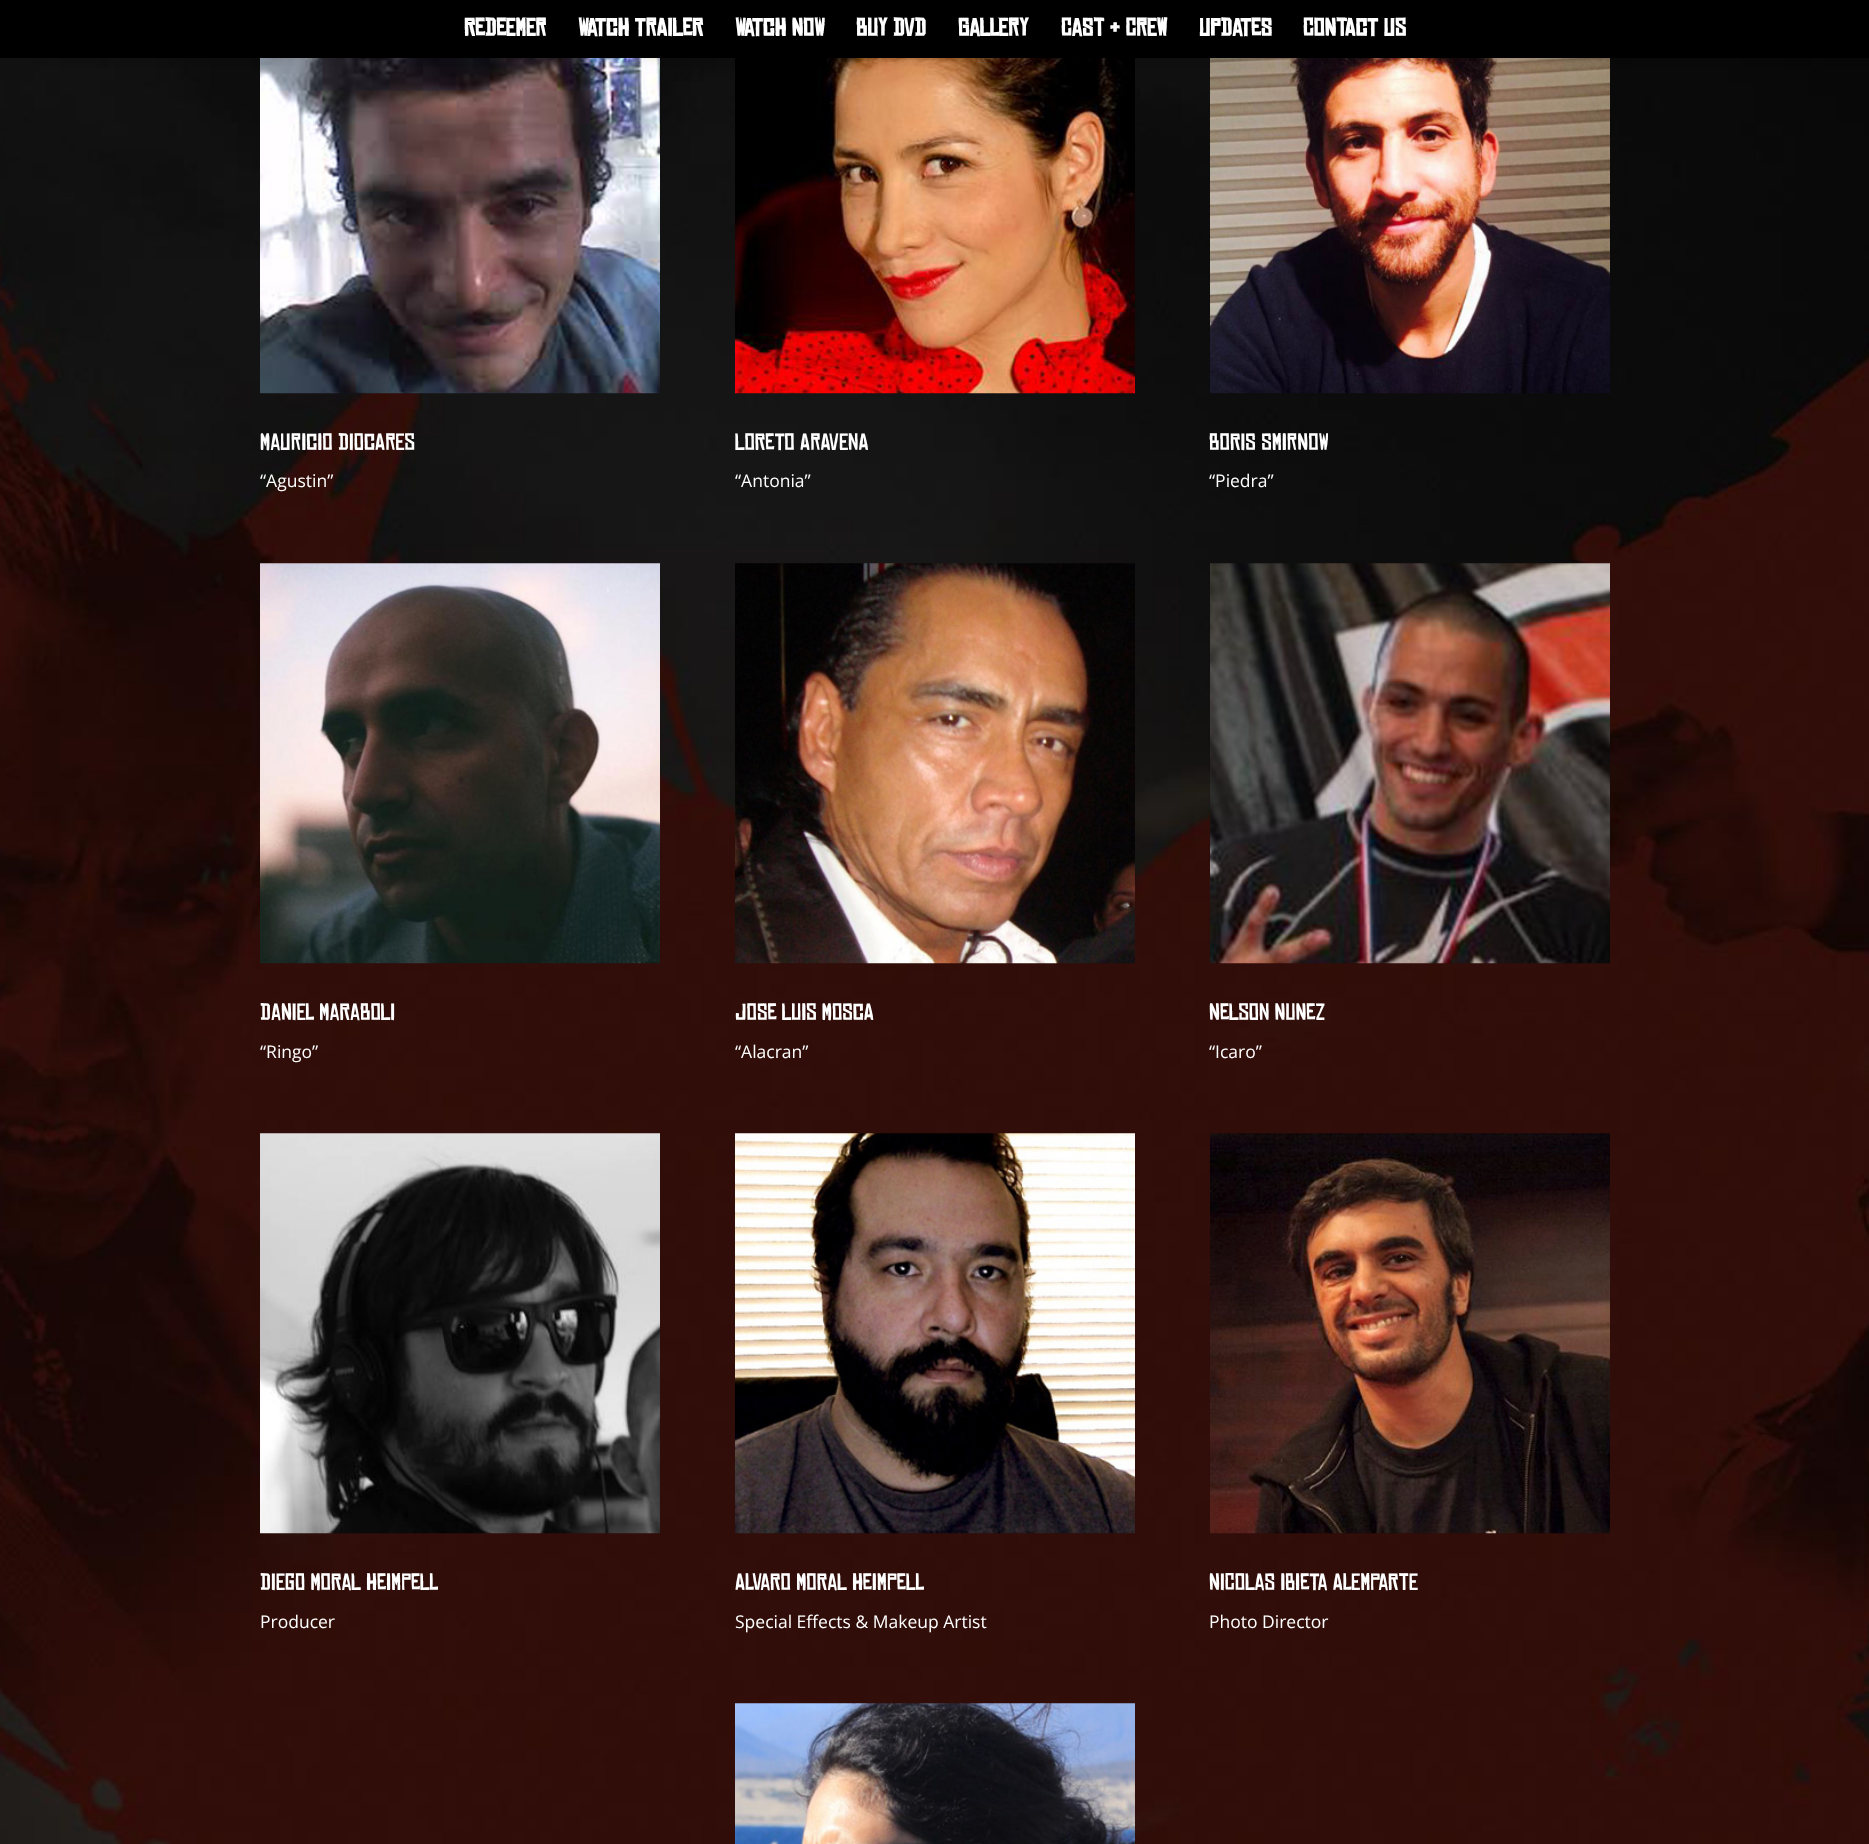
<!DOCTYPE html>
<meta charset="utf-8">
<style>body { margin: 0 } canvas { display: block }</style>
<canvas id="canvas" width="1869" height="1844"></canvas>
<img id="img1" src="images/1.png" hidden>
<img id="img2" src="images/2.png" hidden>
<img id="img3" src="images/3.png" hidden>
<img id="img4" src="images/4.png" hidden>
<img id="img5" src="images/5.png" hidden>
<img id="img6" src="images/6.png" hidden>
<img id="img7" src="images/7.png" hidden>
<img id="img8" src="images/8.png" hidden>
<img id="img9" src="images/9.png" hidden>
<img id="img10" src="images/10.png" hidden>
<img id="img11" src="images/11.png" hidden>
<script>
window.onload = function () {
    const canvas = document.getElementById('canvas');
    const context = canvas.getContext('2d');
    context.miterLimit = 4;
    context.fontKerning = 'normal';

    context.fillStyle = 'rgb(255, 255, 255)';
    context.fillRect(0, 0, 1869, 1844);
    context.drawImage(document.getElementById('img1'), 0, 58, 1869, 1786);
    context.drawImage(document.getElementById('img2'), 260, 58, 400, 336);
    context.drawImage(document.getElementById('img3'), 735, 58, 400, 336);
    context.drawImage(document.getElementById('img4'), 1210, 58, 400, 336);
    context.fillStyle = 'rgba(0, 0, 0, 0.1)';
    context.filter = 'blur(4.5px)';
    context.beginPath();
    context.rect(0, 0, 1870, 58);
    context.fill();
    context.filter = 'none';
    context.fillStyle = 'rgb(0, 0, 0)';
    context.fillRect(0, 0, 1869, 58);
    context.drawImage(document.getElementById('img5'), 260, 563, 400, 401);
    context.drawImage(document.getElementById('img6'), 735, 563, 400, 401);
    context.drawImage(document.getElementById('img7'), 1210, 563, 400, 401);
    context.drawImage(document.getElementById('img8'), 260, 1133, 400, 401);
    context.drawImage(document.getElementById('img9'), 735, 1133, 400, 401);
    context.drawImage(document.getElementById('img10'), 1210, 1133, 400, 401);
    context.drawImage(document.getElementById('img11'), 735, 1703, 400, 141);
    context.font = 'bold 23.75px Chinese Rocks';
    context.fillStyle = 'rgb(255, 255, 255)';
    context.fillText('REDEEMER', 464, 36);
    context.fillText('WATCH TRAILER', 578, 36);
    context.fillText('WATCH NOW', 735, 36);
    context.fillText('BUY DVD', 856, 36);
    context.fillText('GALLERY', 958, 36);
    context.fillText('CAST & CREW', 1061, 36);
    context.fillText('UPDATES', 1199, 36);
    context.fillText('CONTACT US', 1303, 36);
    context.font = '22.5px Chinese Rocks';
    context.fillText('MAURICIO DIOCARES', 260, 450);
    context.font = '17.5px Open Sans';
    context.fillText('“Agustin”', 260, 487);
    context.font = '22.5px Chinese Rocks';
    context.fillText('LORETO ARAVENA', 735, 450);
    context.font = '17.5px Open Sans';
    context.fillText('“Antonia”', 735, 487);
    context.font = '22.5px Chinese Rocks';
    context.fillText('BORIS SMIRNOW', 1209, 450);
    context.font = '17.5px Open Sans';
    context.fillText('“Piedra”', 1209, 487);
    context.font = '22.5px Chinese Rocks';
    context.fillText('DANIEL MARABOLI', 260, 1020);
    context.font = '17.5px Open Sans';
    context.fillText('“Ringo”', 260, 1058);
    context.font = '22.5px Chinese Rocks';
    context.fillText('JOSE LUIS MOSCA', 735, 1020);
    context.font = '17.5px Open Sans';
    context.fillText('“Alacran”', 735, 1058);
    context.font = '22.5px Chinese Rocks';
    context.fillText('NELSON NUNEZ', 1209, 1020);
    context.font = '17.5px Open Sans';
    context.fillText('“Icaro”', 1209, 1058);
    context.font = '22.5px Chinese Rocks';
    context.fillText('DIEGO MORAL HEIMPELL', 260, 1590);
    context.font = '17.5px Open Sans';
    context.fillText('Producer', 260, 1628);
    context.font = '22.5px Chinese Rocks';
    context.fillText('ALVARO MORAL HEIMPELL', 735, 1590);
    context.font = '17.5px Open Sans';
    context.fillText('Special Effects & Makeup Artist', 735, 1628);
    context.font = '22.5px Chinese Rocks';
    context.fillText('NICOLAS IBIETA ALEMPARTE', 1209, 1590);
    context.font = '17.5px Open Sans';
    context.fillText('Photo Director', 1209, 1628);
};
</script>
